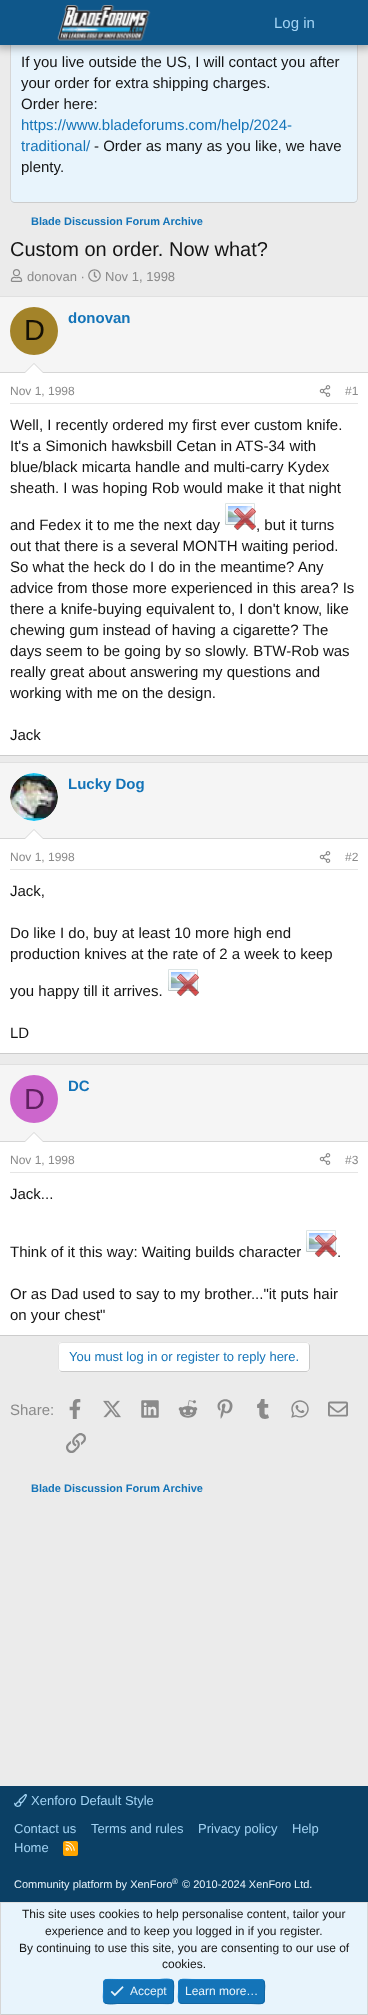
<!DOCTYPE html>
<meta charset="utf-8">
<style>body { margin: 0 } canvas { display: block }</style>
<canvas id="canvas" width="368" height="2015"></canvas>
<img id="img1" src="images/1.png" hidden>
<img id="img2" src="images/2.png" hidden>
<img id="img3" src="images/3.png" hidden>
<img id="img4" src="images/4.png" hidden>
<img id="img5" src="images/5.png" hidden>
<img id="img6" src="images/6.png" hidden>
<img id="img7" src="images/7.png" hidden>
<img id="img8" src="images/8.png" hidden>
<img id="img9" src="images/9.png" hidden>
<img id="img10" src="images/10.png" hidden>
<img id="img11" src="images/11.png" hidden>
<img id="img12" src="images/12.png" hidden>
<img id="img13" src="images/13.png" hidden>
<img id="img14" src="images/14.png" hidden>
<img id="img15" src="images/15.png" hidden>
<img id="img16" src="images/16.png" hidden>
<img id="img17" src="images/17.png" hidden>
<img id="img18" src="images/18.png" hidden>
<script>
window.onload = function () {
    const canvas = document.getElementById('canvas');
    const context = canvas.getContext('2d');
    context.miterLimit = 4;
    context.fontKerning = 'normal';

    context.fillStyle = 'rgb(235, 235, 235)';
    context.fillRect(0, 0, 368, 2015);
    context.fillStyle = 'rgb(232, 244, 252)';
    context.beginPath();
    context.roundRect(10, -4, 348, 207, 4);
    context.fill();
    context.beginPath();
    context.moveTo(356.5, -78.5);
    context.lineTo(357.5, -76);
    context.lineTo(357.5, 199);
    context.lineTo(356.5, 201.5);
    context.strokeStyle = 'rgb(214, 214, 214)';
    context.stroke();
    context.beginPath();
    context.moveTo(356.5, 201.5);
    context.lineTo(354, 202.5);
    context.lineTo(14, 202.5);
    context.lineTo(11.5, 201.5);
    context.strokeStyle = 'rgb(204, 204, 204)';
    context.stroke();
    context.beginPath();
    context.moveTo(11.5, 201.5);
    context.lineTo(10.5, 199);
    context.lineTo(10.5, -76);
    context.lineTo(11.5, -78.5);
    context.strokeStyle = 'rgb(214, 214, 214)';
    context.stroke();
    context.fillStyle = 'rgba(0, 0, 0, 0.3)';
    context.filter = 'blur(4px)';
    context.beginPath();
    context.rect(-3, -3, 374, 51);
    context.fill();
    context.filter = 'none';
    context.fillStyle = 'rgb(15, 87, 138)';
    context.fillRect(0, 0, 368, 45);
    context.drawImage(document.getElementById('img1'), 57, 5, 94, 36);
    context.drawImage(document.getElementById('img2'), 10, 269, 13, 13);
    context.drawImage(document.getElementById('img3'), 88, 269, 13, 13);
    context.fillStyle = 'rgb(255, 255, 255)';
    context.fillRect(0, 373, 368, 382);
    context.fillStyle = 'rgb(224, 224, 224)';
    context.fillRect(0, 296, 368, 1);
    context.fillStyle = 'rgb(204, 204, 204)';
    context.fillRect(0, 755, 368, 1);
    context.fillStyle = 'rgb(245, 245, 245)';
    context.fillRect(0, 297, 368, 75);
    context.fillStyle = 'rgb(214, 214, 214)';
    context.fillRect(0, 372, 368, 1);
    context.fillStyle = 'rgb(163, 131, 41)';
    context.beginPath();
    context.arc(34, 331, 24, 0, 2 * Math.PI);
    context.fill();
    context.fillStyle = 'rgb(214, 214, 214)';
    context.beginPath();
    context.moveTo(44, 373);
    context.lineTo(24, 373);
    context.lineTo(34, 363);
    context.closePath();
    context.fill();
    context.fillStyle = 'rgb(255, 255, 255)';
    context.beginPath();
    context.moveTo(43, 373);
    context.lineTo(25, 373);
    context.lineTo(34, 364);
    context.closePath();
    context.fill();
    context.fillStyle = 'rgb(229, 229, 229)';
    context.fillRect(10, 403, 348, 1);
    context.drawImage(document.getElementById('img4'), 319, 385, 12, 12);
    context.drawImage(document.getElementById('img5'), 225, 503, 31, 27);
    context.fillStyle = 'rgb(255, 255, 255)';
    context.fillRect(0, 839, 368, 214);
    context.fillStyle = 'rgb(224, 224, 224)';
    context.fillRect(0, 762, 368, 1);
    context.fillStyle = 'rgb(204, 204, 204)';
    context.fillRect(0, 1053, 368, 1);
    context.fillStyle = 'rgb(245, 245, 245)';
    context.fillRect(0, 763, 368, 75);
    context.fillStyle = 'rgb(214, 214, 214)';
    context.fillRect(0, 838, 368, 1);
    context.fillStyle = 'rgb(255, 255, 255)';
    context.beginPath();
    context.arc(34, 797, 24, 0, 2 * Math.PI);
    context.fill();
    context.drawImage(document.getElementById('img6'), 10, 773, 48, 48);
    context.fillStyle = 'rgb(214, 214, 214)';
    context.beginPath();
    context.moveTo(44, 839);
    context.lineTo(24, 839);
    context.lineTo(34, 829);
    context.closePath();
    context.fill();
    context.fillStyle = 'rgb(255, 255, 255)';
    context.beginPath();
    context.moveTo(43, 839);
    context.lineTo(25, 839);
    context.lineTo(34, 830);
    context.closePath();
    context.fill();
    context.fillStyle = 'rgb(229, 229, 229)';
    context.fillRect(10, 869, 348, 1);
    context.drawImage(document.getElementById('img4'), 319, 851, 12, 12);
    context.drawImage(document.getElementById('img5'), 168, 969, 31, 27);
    context.fillStyle = 'rgb(255, 255, 255)';
    context.fillRect(0, 1142, 368, 193);
    context.fillStyle = 'rgb(224, 224, 224)';
    context.fillRect(0, 1064, 368, 1);
    context.fillStyle = 'rgb(204, 204, 204)';
    context.fillRect(0, 1335, 368, 1);
    context.fillStyle = 'rgb(245, 245, 245)';
    context.fillRect(0, 1065, 368, 76);
    context.fillStyle = 'rgb(214, 214, 214)';
    context.fillRect(0, 1141, 368, 1);
    context.fillStyle = 'rgb(204, 102, 204)';
    context.beginPath();
    context.arc(34, 1099, 24, 0, 2 * Math.PI);
    context.fill();
    context.fillStyle = 'rgb(214, 214, 214)';
    context.beginPath();
    context.moveTo(44, 1142);
    context.lineTo(24, 1142);
    context.lineTo(34, 1132);
    context.closePath();
    context.fill();
    context.fillStyle = 'rgb(255, 255, 255)';
    context.beginPath();
    context.moveTo(43, 1142);
    context.lineTo(25, 1142);
    context.lineTo(34, 1133);
    context.closePath();
    context.fill();
    context.fillStyle = 'rgb(229, 229, 229)';
    context.fillRect(10, 1172, 348, 1);
    context.drawImage(document.getElementById('img4'), 319, 1153, 12, 12);
    context.drawImage(document.getElementById('img5'), 306, 1230, 31, 27);
    context.fillStyle = 'rgb(255, 255, 255)';
    context.beginPath();
    context.roundRect(58, 1342, 252, 30, 4);
    context.fill();
    context.beginPath();
    context.moveTo(308.5, 1343.5);
    context.bezierCurveTo(309, 1344, 309.5, 1345, 309.5, 1346);
    context.lineTo(309.5, 1368);
    context.bezierCurveTo(309.5, 1369, 309, 1370, 308.5, 1370.5);
    context.bezierCurveTo(308, 1371, 307, 1371.5, 306, 1371.5);
    context.lineTo(62, 1371.5);
    context.bezierCurveTo(61, 1371.5, 60, 1371, 59.5, 1370.5);
    context.strokeStyle = 'rgb(201, 201, 201)';
    context.stroke();
    context.beginPath();
    context.moveTo(59.5, 1370.5);
    context.bezierCurveTo(59, 1370, 58.5, 1369, 58.5, 1368);
    context.lineTo(58.5, 1346);
    context.bezierCurveTo(58.5, 1345, 59, 1344, 59.5, 1343.5);
    context.bezierCurveTo(60, 1343, 61, 1342.5, 62, 1342.5);
    context.lineTo(306, 1342.5);
    context.bezierCurveTo(307, 1342.5, 308, 1343, 308.5, 1343.5);
    context.strokeStyle = 'rgb(227, 227, 227)';
    context.stroke();
    context.drawImage(document.getElementById('img7'), 69, 1399, 12, 20);
    context.drawImage(document.getElementById('img8'), 103, 1400, 18, 18);
    context.drawImage(document.getElementById('img9'), 141, 1400, 18, 18);
    context.drawImage(document.getElementById('img10'), 178, 1400, 20, 18);
    context.drawImage(document.getElementById('img11'), 217, 1399, 16, 20);
    context.drawImage(document.getElementById('img12'), 257, 1399, 12, 20);
    context.drawImage(document.getElementById('img13'), 291, 1400, 18, 18);
    context.drawImage(document.getElementById('img14'), 328, 1401, 20, 16);
    context.drawImage(document.getElementById('img15'), 66, 1433, 20, 20);
    context.fillStyle = 'rgb(11, 64, 101)';
    context.fillRect(0, 1786, 368, 116);
    context.drawImage(document.getElementById('img16'), 14, 1794, 13, 13);
    context.fillStyle = 'rgb(255, 165, 0)';
    context.beginPath();
    context.roundRect(63, 1841, 15, 15, 2);
    context.fill();
    context.drawImage(document.getElementById('img17'), 65, 1841, 10, 10);
    context.fillStyle = 'rgb(232, 244, 252)';
    context.fillRect(1, 1903, 366, 111);
    context.fillStyle = 'rgb(224, 224, 224)';
    context.fillRect(0, 1902, 368, 1);
    context.fillStyle = 'rgb(214, 214, 214)';
    context.fillRect(367, 1902, 1, 113);
    context.fillStyle = 'rgb(204, 204, 204)';
    context.fillRect(0, 2014, 368, 1);
    context.fillStyle = 'rgb(214, 214, 214)';
    context.fillRect(0, 1902, 1, 113);
    context.fillStyle = 'rgb(20, 116, 184)';
    context.beginPath();
    context.roundRect(103, 1979, 71, 25, 4);
    context.fill();
    context.beginPath();
    context.moveTo(172.5, 1980.5);
    context.bezierCurveTo(174.5, 1983, 173.5, 1989, 173.5, 1991.5);
    context.bezierCurveTo(173.5, 2005.5, 174.5, 2003.5, 159.5, 2003.5);
    context.lineTo(117.5, 2003.5);
    context.bezierCurveTo(116.5, 2003.5, 107, 2005, 104.5, 2002.5);
    context.strokeStyle = 'rgb(18, 101, 161)';
    context.stroke();
    context.beginPath();
    context.moveTo(104.5, 2002.5);
    context.bezierCurveTo(102.5, 2000, 103.5, 1994, 103.5, 1991.5);
    context.bezierCurveTo(103.5, 1977.5, 102.5, 1979.5, 117.5, 1979.5);
    context.lineTo(159.5, 1979.5);
    context.bezierCurveTo(160.5, 1979.5, 170, 1978, 172.5, 1980.5);
    context.strokeStyle = 'rgb(23, 130, 207)';
    context.stroke();
    context.drawImage(document.getElementById('img18'), 110, 1986, 14, 11);
    context.beginPath();
    context.roundRect(178, 1979, 87, 25, 4);
    context.fill();
    context.beginPath();
    context.moveTo(263.5, 1980.5);
    context.bezierCurveTo(265.5, 1983, 264.5, 1989, 264.5, 1991.5);
    context.bezierCurveTo(264.5, 2006.5, 265, 2003.5, 248, 2003.5);
    context.lineTo(182, 2003.5);
    context.lineTo(179.5, 2002.5);
    context.strokeStyle = 'rgb(18, 101, 161)';
    context.stroke();
    context.beginPath();
    context.moveTo(179.5, 2002.5);
    context.bezierCurveTo(177.5, 2000, 178.5, 1994, 178.5, 1991.5);
    context.bezierCurveTo(178.5, 1976.5, 178, 1979.5, 195, 1979.5);
    context.lineTo(261, 1979.5);
    context.lineTo(263.5, 1980.5);
    context.strokeStyle = 'rgb(23, 130, 207)';
    context.stroke();
    context.font = '15px Liberation Sans';
    context.fillStyle = 'rgb(163, 212, 245)';
    context.fillText('Log in', 274, 28);
    context.fillStyle = 'rgb(20, 20, 20)';
    context.fillText('If you live outside the US, I will contact you after', 21, 67);
    context.fillText('your order for extra shipping charges.', 21, 88);
    context.fillText('Order here:', 21, 109);
    context.fillStyle = 'rgb(20, 116, 184)';
    context.fillText('https://www.bladeforums.com/help/2024-', 21, 130);
    context.fillText('traditional/', 21, 151);
    context.fillStyle = 'rgb(20, 20, 20)';
    context.fillText('- Order as many as you like, we have', 94, 151);
    context.fillText('plenty.', 21, 172);
    context.font = 'bold 11px Liberation Sans';
    context.fillStyle = 'rgb(20, 116, 184)';
    context.fillText('Blade Discussion Forum Archive', 31, 225);
    context.font = '20px Liberation Sans';
    context.fillStyle = 'rgb(20, 20, 20)';
    context.fillText('Custom on order. Now what?', 10, 256);
    context.font = '13px Liberation Sans';
    context.fillStyle = 'rgb(138, 138, 138)';
    context.fillText('donovan ·', 27, 281);
    context.fillText('Nov 1, 1998', 105, 281);
    context.font = 'bold 15px Liberation Sans';
    context.fillStyle = 'rgb(20, 116, 184)';
    context.fillText('donovan', 68, 323);
    context.font = '29px Liberation Sans';
    context.fillStyle = 'rgb(20, 16, 5)';
    context.fillText('D', 24, 340);
    context.font = '12px Liberation Sans';
    context.fillStyle = 'rgb(138, 138, 138)';
    context.fillText('Nov 1, 1998', 10, 395);
    context.fillText('#1', 345, 395);
    context.font = '15px Liberation Sans';
    context.fillStyle = 'rgb(20, 20, 20)';
    context.fillText('Well, I recently ordered my first ever custom knife.', 10, 430);
    context.fillText('It\'s a Simonich hawksbill Cetan in ATS-34 with', 10, 451);
    context.fillText('blue/black micarta handle and multi-carry Kydex', 10, 472);
    context.fillText('sheath. I was hoping Rob would make it that night', 10, 493);
    context.fillText('and Fedex it to me the next day', 10, 530);
    context.fillText(', but it turns', 256, 530);
    context.fillText('out that there is a several MONTH waiting period.', 10, 551);
    context.fillText('So what the heck do I do in the meantime? Any', 10, 572);
    context.fillText('advice from those more experienced in this area? Is', 10, 593);
    context.fillText('there a knife-buying equivalent to, I don\'t know, like', 10, 614);
    context.fillText('chewing gum instead of having a cigarette? The', 10, 635);
    context.fillText('days seem to be going by so slowly. BTW-Rob was', 10, 656);
    context.fillText('really great about answering my questions and', 10, 677);
    context.fillText('working with me on the design.', 10, 698);
    context.fillText('Jack', 10, 740);
    context.font = 'bold 15px Liberation Sans';
    context.fillStyle = 'rgb(20, 116, 184)';
    context.fillText('Lucky Dog', 68, 789);
    context.font = '12px Liberation Sans';
    context.fillStyle = 'rgb(138, 138, 138)';
    context.fillText('Nov 1, 1998', 10, 861);
    context.fillText('#2', 345, 861);
    context.font = '15px Liberation Sans';
    context.fillStyle = 'rgb(20, 20, 20)';
    context.fillText('Jack,', 10, 896);
    context.fillText('Do like I do, buy at least 10 more high end', 10, 938);
    context.fillText('production knives at the rate of 2 a week to keep', 10, 959);
    context.fillText('you happy till it arrives.', 10, 996);
    context.fillText('LD', 10, 1038);
    context.font = 'bold 15px Liberation Sans';
    context.fillStyle = 'rgb(20, 116, 184)';
    context.fillText('DC', 68, 1091);
    context.font = '29px Liberation Sans';
    context.fillStyle = 'rgb(96, 32, 96)';
    context.fillText('D', 24, 1109);
    context.font = '12px Liberation Sans';
    context.fillStyle = 'rgb(138, 138, 138)';
    context.fillText('Nov 1, 1998', 10, 1164);
    context.fillText('#3', 345, 1164);
    context.font = '15px Liberation Sans';
    context.fillStyle = 'rgb(20, 20, 20)';
    context.fillText('Jack...', 10, 1199);
    context.fillText('Think of it this way: Waiting builds character', 10, 1257);
    context.fillText('.', 337, 1257);
    context.fillText('Or as Dad used to say to my brother..."it puts hair', 10, 1299);
    context.fillText('on your chest"', 10, 1320);
    context.font = '13px Liberation Sans';
    context.fillStyle = 'rgb(20, 116, 184)';
    context.fillText('You must log in or register to reply here.', 69, 1361);
    context.font = '15px Liberation Sans';
    context.fillStyle = 'rgb(138, 138, 138)';
    context.fillText('Share:', 10, 1415);
    context.font = 'bold 11px Liberation Sans';
    context.fillStyle = 'rgb(20, 116, 184)';
    context.fillText('Blade Discussion Forum Archive', 31, 1492);
    context.font = '13px Liberation Sans';
    context.fillStyle = 'rgb(163, 212, 245)';
    context.fillText('Xenforo Default Style', 31, 1805);
    context.fillText('Contact us', 14, 1833);
    context.fillText('Terms and rules', 91, 1833);
    context.fillText('Privacy policy', 198, 1833);
    context.fillText('Help', 292, 1833);
    context.fillText('Home', 14, 1852);
    context.font = '11px Liberation Sans';
    context.fillStyle = 'rgb(232, 244, 252)';
    context.fillText('Community platform by XenForo', 14, 1888);
    context.font = '8px Liberation Sans';
    context.fillText('®', 172, 1884);
    context.font = '11px Liberation Sans';
    context.fillText('© 2010-2024 XenForo Ltd.', 182, 1888);
    context.font = '12px Liberation Sans';
    context.fillStyle = 'rgb(20, 20, 20)';
    context.fillText('This site uses cookies to help personalise content, tailor your', 22, 1918);
    context.fillText('experience and to keep you logged in if you register.', 45, 1935);
    context.fillText('By continuing to use this site, you are consenting to our use of', 19, 1952);
    context.fillText('cookies.', 162, 1968);
    context.fillStyle = 'rgb(232, 244, 252)';
    context.fillText('Accept', 130, 1995);
    context.fillText('Learn more…', 185, 1995);
};
</script>
